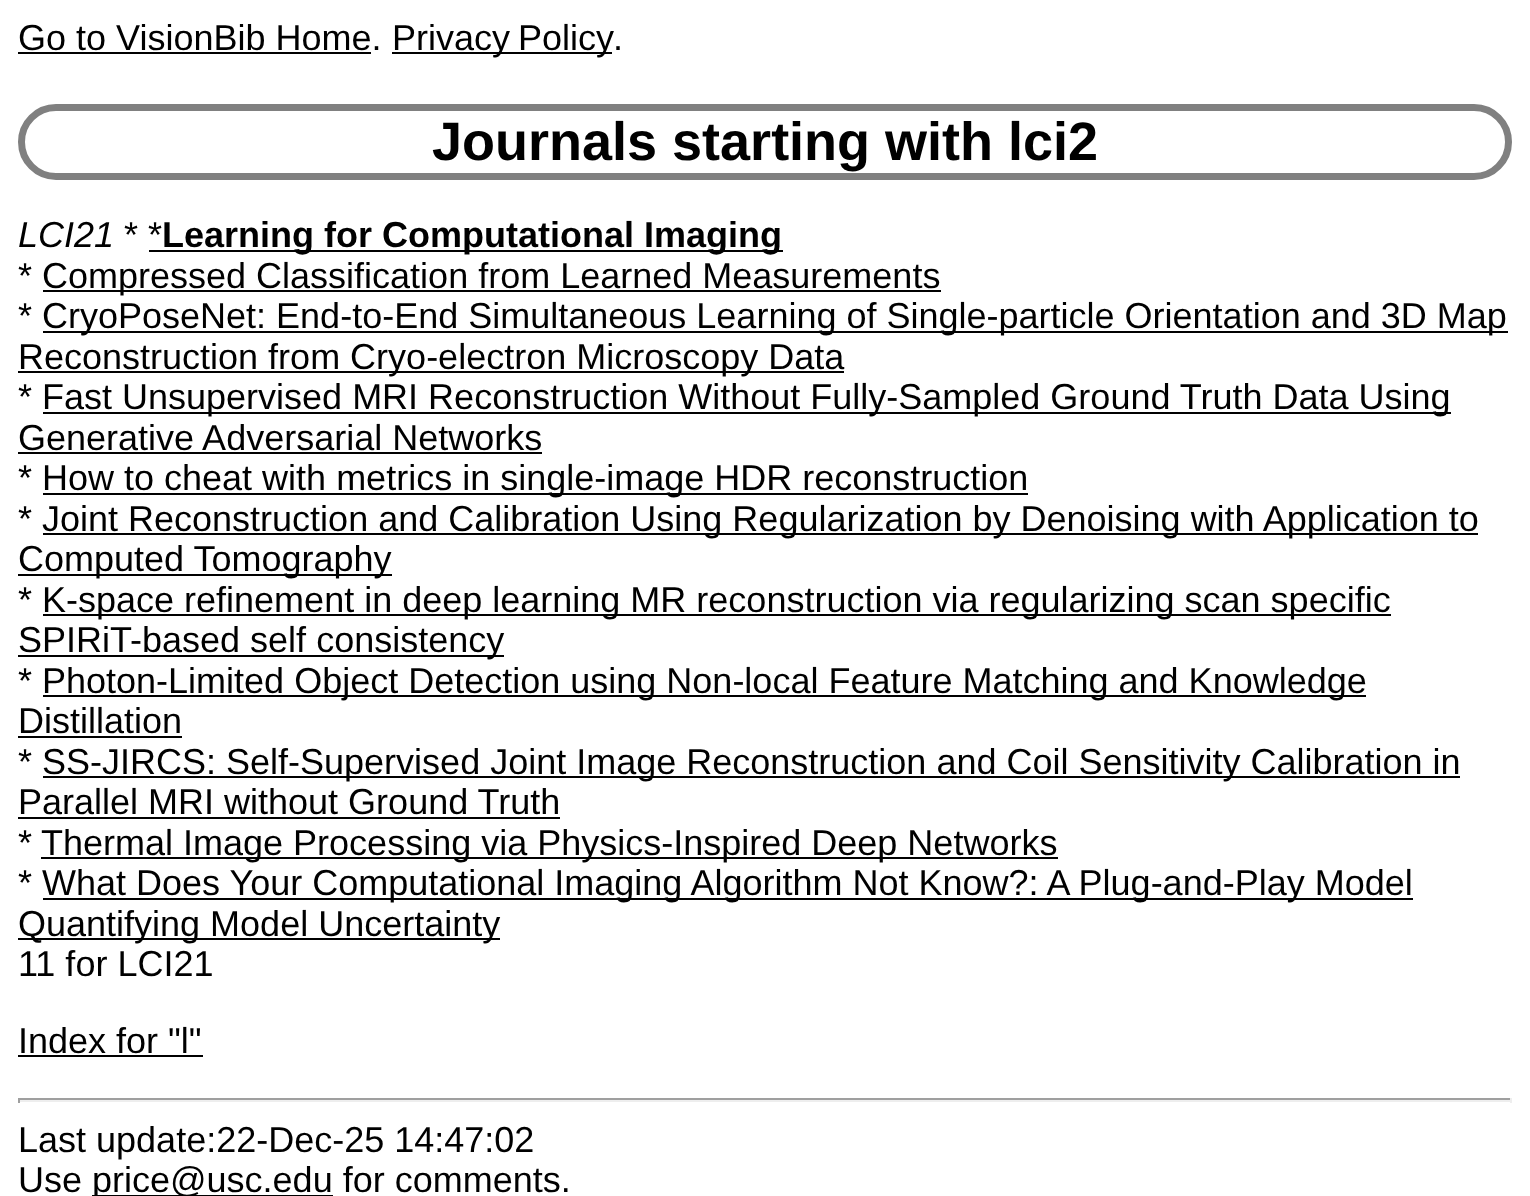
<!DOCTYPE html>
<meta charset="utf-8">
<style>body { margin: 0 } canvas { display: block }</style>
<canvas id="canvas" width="1530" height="1196"></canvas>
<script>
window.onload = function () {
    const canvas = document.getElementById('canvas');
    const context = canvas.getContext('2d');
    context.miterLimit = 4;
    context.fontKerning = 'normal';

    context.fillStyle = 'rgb(255, 255, 255)';
    context.fillRect(0, 0, 1530, 1196);
    context.fillStyle = 'rgb(0, 0, 0)';
    context.fillRect(18, 52, 353, 2);
    context.fillRect(392, 52, 220, 2);
    context.beginPath();
    context.roundRect(21.5, 107.5, 1487, 69, 34.5);
    context.strokeStyle = 'rgb(128, 128, 128)';
    context.lineWidth = 7;
    context.stroke();
    context.fillRect(149, 250, 634, 2);
    context.fillRect(43, 290, 898, 2);
    context.fillRect(43, 331, 1465, 2);
    context.fillRect(18, 371, 826, 2);
    context.fillRect(43, 412, 1408, 2);
    context.fillRect(18, 452, 524, 2);
    context.fillRect(43, 493, 985, 2);
    context.fillRect(43, 533, 1435, 2);
    context.fillRect(18, 574, 374, 2);
    context.fillRect(43, 614, 1348, 2);
    context.fillRect(18, 655, 486, 2);
    context.fillRect(43, 695, 1323, 2);
    context.fillRect(18, 736, 164, 2);
    context.fillRect(43, 776, 1417, 2);
    context.fillRect(18, 817, 542, 2);
    context.fillRect(41, 857, 1017, 2);
    context.fillRect(43, 898, 1370, 2);
    context.fillRect(18, 938, 482, 2);
    context.fillRect(18, 1055, 185, 2);
    context.fillStyle = 'rgb(159, 159, 159)';
    context.fillRect(18, 1098, 1494, 2);
    context.fillStyle = 'rgb(238, 238, 238)';
    context.fillRect(1510, 1098, 2, 5);
    context.fillRect(18, 1100, 1494, 2);
    context.fillStyle = 'rgb(159, 159, 159)';
    context.fillRect(18, 1098, 2, 5);
    context.fillStyle = 'rgb(0, 0, 0)';
    context.fillRect(92, 1195, 241, 1);
    context.font = '36px Liberation Sans';
    context.fillText('Go to VisionBib Home.', 18, 50);
    context.wordSpacing = '-2px';
    context.fillText('Privacy Policy', 392, 50);
    context.wordSpacing = '0px';
    context.fillText('.', 613, 50);
    context.font = 'bold 54px Liberation Sans';
    context.fillText('Journals starting with lci2', 432, 160);
    context.font = 'italic 36px Liberation Sans';
    context.fillText('LCI21', 18, 247);
    context.font = '36px Liberation Sans';
    context.fillText('* *', 124, 247);
    context.font = 'bold 36px Liberation Sans';
    context.fillText('Learning for Computational Imaging', 162, 247);
    context.font = '36px Liberation Sans';
    context.fillText('*', 18, 288);
    context.fillText('Compressed Classification from Learned Measurements', 42, 288);
    context.fillText('*', 18, 328);
    context.fillText('CryoPoseNet: End-to-End Simultaneous Learning of Single-particle Orientation and 3D Map', 42, 328);
    context.fillText('Reconstruction from Cryo-electron Microscopy Data', 18, 369);
    context.fillText('*', 18, 409);
    context.fillText('Fast Unsupervised MRI Reconstruction Without Fully-Sampled Ground Truth Data Using', 42, 409);
    context.fillText('Generative Adversarial Networks', 18, 450);
    context.fillText('*', 18, 490);
    context.fillText('How to cheat with metrics in single-image HDR reconstruction', 42, 490);
    context.fillText('*', 18, 531);
    context.fillText('Joint Reconstruction and Calibration Using Regularization by Denoising with Application to', 42, 531);
    context.fillText('Computed Tomography', 18, 571);
    context.fillText('*', 18, 612);
    context.fillText('K-space refinement in deep learning MR reconstruction via regularizing scan specific', 42, 612);
    context.fillText('SPIRiT-based self consistency', 18, 652);
    context.fillText('*', 18, 693);
    context.fillText('Photon-Limited Object Detection using Non-local Feature Matching and Knowledge', 42, 693);
    context.fillText('Distillation', 18, 733);
    context.fillText('*', 18, 774);
    context.fillText('SS-JIRCS: Self-Supervised Joint Image Reconstruction and Coil Sensitivity Calibration in', 42, 774);
    context.fillText('Parallel MRI without Ground Truth', 18, 814);
    context.fillText('*', 18, 855);
    context.fillText('Thermal Image Processing via Physics-Inspired Deep Networks', 41, 855);
    context.fillText('*', 18, 895);
    context.fillText('What Does Your Computational Imaging Algorithm Not Know?: A Plug-and-Play Model', 42, 895);
    context.fillText('Quantifying Model Uncertainty', 18, 936);
    context.fillText('11 for LCI21', 18, 976);
    context.fillText('Index for "l"', 18, 1053);
    context.fillText('Last update:22-Dec-25 14:47:02', 18, 1152);
    context.fillText('Use', 18, 1192);
    context.fillText('price@usc.edu for comments.', 92, 1192);
};
</script>
